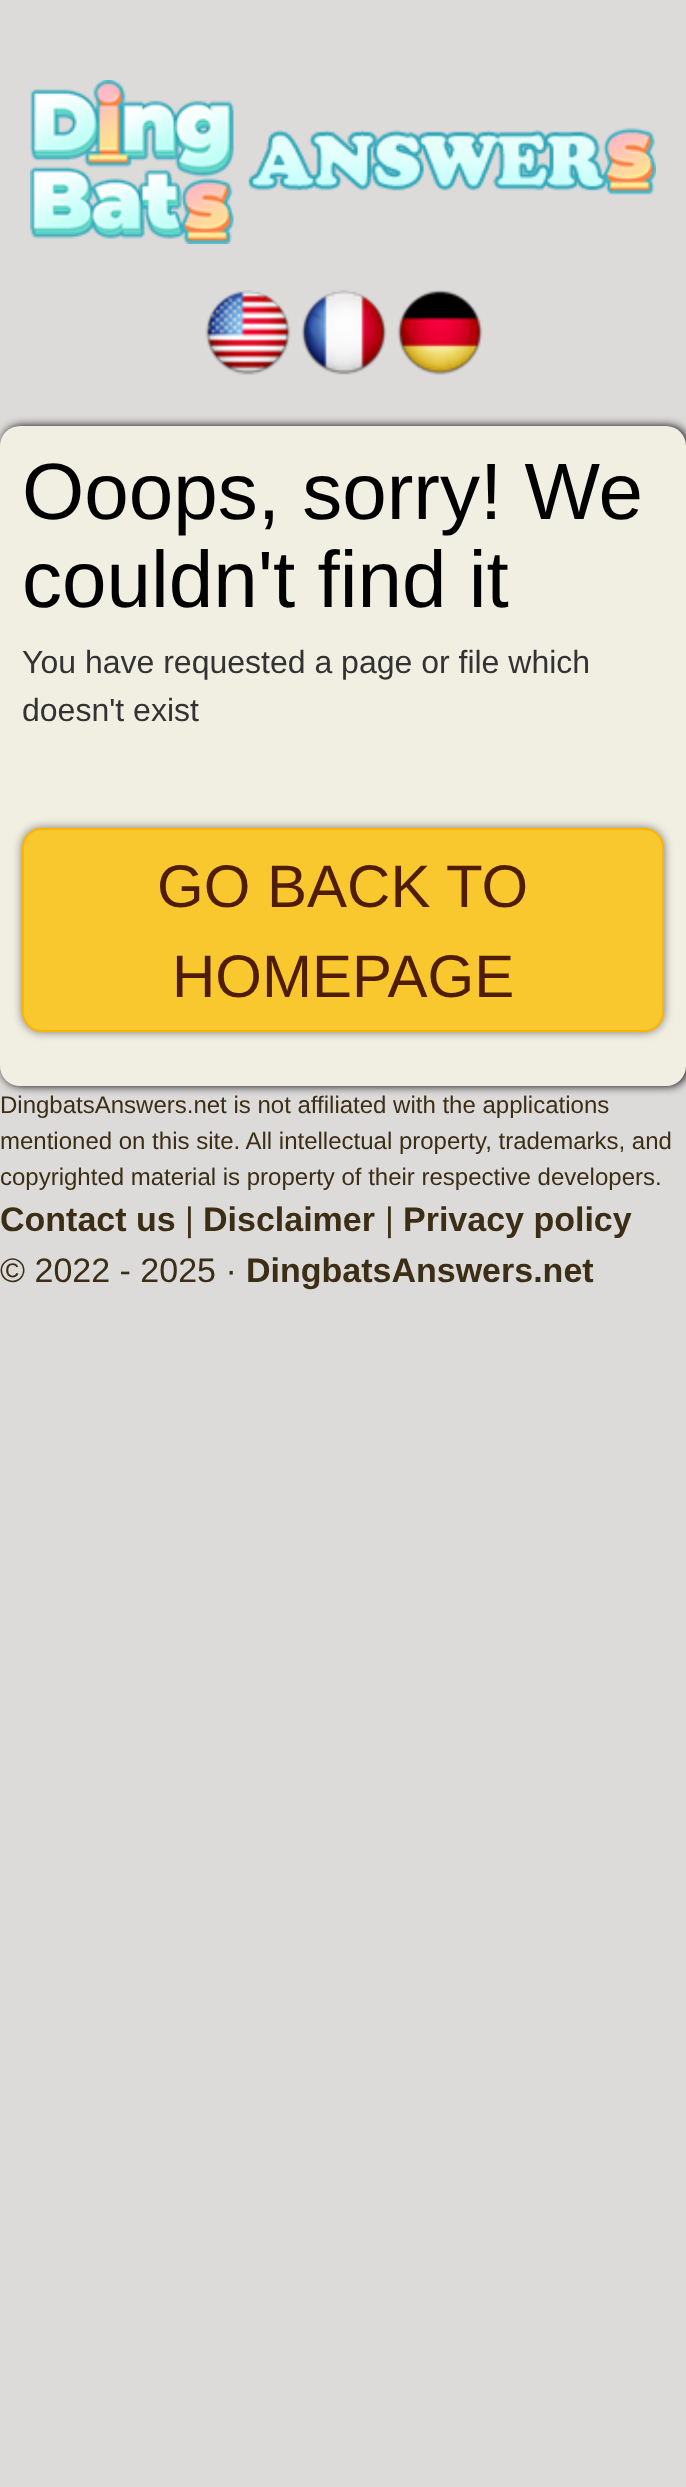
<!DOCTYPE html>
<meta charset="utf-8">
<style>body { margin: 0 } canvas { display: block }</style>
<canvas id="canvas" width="686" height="2487"></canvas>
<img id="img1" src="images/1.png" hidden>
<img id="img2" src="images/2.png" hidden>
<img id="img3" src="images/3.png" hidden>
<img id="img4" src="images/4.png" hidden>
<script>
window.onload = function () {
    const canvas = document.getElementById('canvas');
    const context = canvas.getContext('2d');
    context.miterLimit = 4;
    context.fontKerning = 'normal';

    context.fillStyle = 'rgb(221, 218, 218)';
    context.fillRect(0, 0, 686, 2487);
    context.drawImage(document.getElementById('img1'), 30, 80, 626, 164);
    context.drawImage(document.getElementById('img2'), 205, 290, 86, 85);
    context.drawImage(document.getElementById('img3'), 301, 290, 86, 85);
    context.drawImage(document.getElementById('img4'), 397, 290, 86, 85);
    context.fillStyle = 'rgb(0, 0, 0)';
    context.filter = 'blur(5px)';
    context.beginPath();
    context.roundRect(2, 426, 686, 660, 20);
    context.fill();
    context.filter = 'none';
    context.fillStyle = 'rgb(241, 238, 226)';
    context.beginPath();
    context.roundRect(0, 426, 686, 660, 20);
    context.fill();
    context.fillStyle = 'rgba(0, 0, 0, 0.5)';
    context.filter = 'blur(5px)';
    context.beginPath();
    context.roundRect(22, 828, 642, 204, 20);
    context.fill();
    context.filter = 'none';
    context.fillStyle = 'rgb(249, 199, 46)';
    context.beginPath();
    context.roundRect(23, 829, 640, 202, 19);
    context.fill();
    context.strokeStyle = 'rgb(255, 180, 0)';
    context.lineWidth = 2;
    context.stroke();
    context.font = '80px Liberation Sans';
    context.fillStyle = 'rgb(0, 0, 0)';
    context.fillText('Ooops, sorry! We', 22, 519);
    context.fillText('couldn\'t find it', 22, 607);
    context.font = '32px Liberation Sans';
    context.fillStyle = 'rgb(51, 51, 51)';
    context.fillText('You have requested a page or file which', 22, 673);
    context.fillText('doesn\'t exist', 22, 721);
    context.font = '60px Liberation Sans';
    context.fillStyle = 'rgb(79, 28, 5)';
    context.fillText('GO BACK TO', 157, 907);
    context.fillText('HOMEPAGE', 172, 997);
    context.font = '24px Liberation Sans';
    context.fillStyle = 'rgb(59, 46, 21)';
    context.fillText('DingbatsAnswers.net is not affiliated with the applications', 0, 1113);
    context.fillText('mentioned on this site. All intellectual property, trademarks, and', 0, 1149);
    context.fillText('copyrighted material is property of their respective developers.', 0, 1185);
    context.font = 'bold 34px Liberation Sans';
    context.fillText('Contact us', 0, 1231);
    context.font = '34px Liberation Sans';
    context.fillText('|', 185, 1231);
    context.font = 'bold 34px Liberation Sans';
    context.fillText('Disclaimer', 203, 1231);
    context.font = '34px Liberation Sans';
    context.fillText('|', 385, 1231);
    context.font = 'bold 34px Liberation Sans';
    context.fillText('Privacy policy', 403, 1231);
    context.font = '34px Liberation Sans';
    context.fillText('© 2022 - 2025 ·', 0, 1282);
    context.font = 'bold 34px Liberation Sans';
    context.fillText('DingbatsAnswers.net', 246, 1282);
};
</script>
